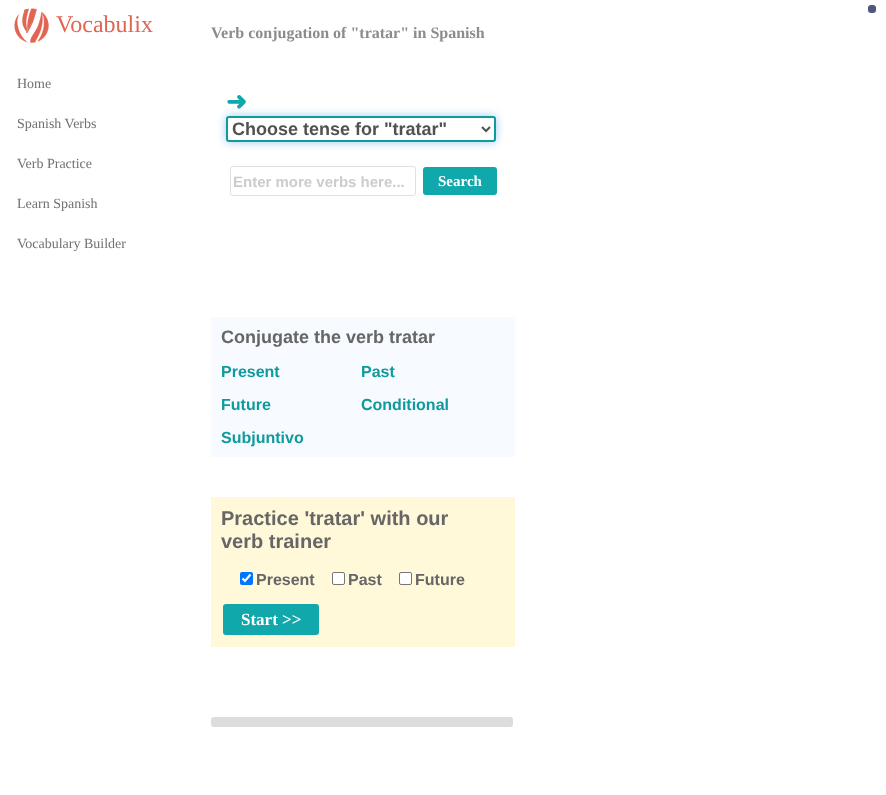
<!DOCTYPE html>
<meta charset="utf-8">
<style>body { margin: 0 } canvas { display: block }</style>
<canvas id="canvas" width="886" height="795"></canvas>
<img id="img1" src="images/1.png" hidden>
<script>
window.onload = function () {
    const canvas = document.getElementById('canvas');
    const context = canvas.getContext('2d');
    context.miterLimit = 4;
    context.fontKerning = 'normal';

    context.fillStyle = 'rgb(255, 255, 255)';
    context.fillRect(0, 0, 886, 795);
    context.drawImage(document.getElementById('img1'), 14, 8, 35, 35);
    context.fillStyle = 'rgb(80, 88, 124)';
    context.beginPath();
    context.roundRect(868, 5, 8, 8, 3);
    context.fill();
    context.fillStyle = 'rgb(158, 202, 237)';
    context.filter = 'blur(5px)';
    context.beginPath();
    context.roundRect(226, 116, 270, 26, 3);
    context.fill();
    context.filter = 'none';
    context.fillStyle = 'rgb(255, 255, 255)';
    context.beginPath();
    context.roundRect(227, 117, 268, 24, 2);
    context.fill();
    context.strokeStyle = 'rgb(15, 154, 157)';
    context.lineWidth = 2;
    context.stroke();
    context.beginPath();
    context.moveTo(482, 127);
    context.lineTo(486, 131);
    context.lineTo(490, 127);
    context.strokeStyle = 'rgb(81, 81, 81)';
    context.stroke();
    context.beginPath();
    context.roundRect(230.5, 166.5, 185, 29, 2.5);
    context.strokeStyle = 'rgb(224, 224, 224)';
    context.lineWidth = 1;
    context.stroke();
    context.fillStyle = 'rgb(16, 168, 171)';
    context.beginPath();
    context.roundRect(423, 167, 74, 28, 3);
    context.fill();
    context.fillStyle = 'rgb(247, 250, 255)';
    context.fillRect(211, 317, 304, 140);
    context.fillStyle = 'rgb(255, 249, 217)';
    context.fillRect(211, 497, 304, 150);
    context.fillStyle = 'rgb(0, 117, 255)';
    context.beginPath();
    context.roundRect(240, 572, 13, 13, 2);
    context.fill();
    context.beginPath();
    context.moveTo(242.5, 578.5);
    context.lineTo(245, 581);
    context.lineTo(250.5, 574.5);
    context.strokeStyle = 'rgb(255, 255, 255)';
    context.lineWidth = 2.1;
    context.stroke();
    context.fillStyle = 'rgb(255, 255, 255)';
    context.beginPath();
    context.roundRect(332.5, 572.5, 12, 12, 1.5);
    context.fill();
    context.strokeStyle = 'rgb(118, 118, 118)';
    context.lineWidth = 1;
    context.stroke();
    context.beginPath();
    context.roundRect(399.5, 572.5, 12, 12, 1.5);
    context.fill();
    context.stroke();
    context.fillStyle = 'rgb(16, 168, 171)';
    context.beginPath();
    context.roundRect(223, 604, 96, 31, 3);
    context.fill();
    context.fillStyle = 'rgb(221, 221, 221)';
    context.beginPath();
    context.roundRect(211, 717, 302, 10, 3);
    context.fill();
    context.font = '24px Liberation Serif';
    context.fillStyle = 'rgb(226, 101, 83)';
    context.fillText('Vocabulix', 56, 32);
    context.font = '14px Liberation Serif';
    context.fillStyle = 'rgb(113, 113, 113)';
    context.fillText('Home', 17, 88);
    context.fillText('Spanish Verbs', 17, 128);
    context.fillText('Verb Practice', 17, 168);
    context.fillText('Learn Spanish', 17, 208);
    context.fillText('Vocabulary Builder', 17, 248);
    context.font = 'bold 16px Liberation Serif';
    context.fillStyle = 'rgb(140, 140, 140)';
    context.fillText('Verb conjugation of "tratar" in Spanish', 211, 38);
    context.font = 'bold 25px DejaVu Sans';
    context.fillStyle = 'rgb(16, 168, 171)';
    context.fillText('➜', 226, 110);
    context.font = 'bold 18px Liberation Sans';
    context.fillStyle = 'rgb(81, 81, 81)';
    context.fillText('Choose tense for "tratar"', 232, 135);
    context.font = 'bold 15px Liberation Sans';
    context.fillStyle = 'rgb(204, 204, 204)';
    context.fillText('Enter more verbs here...', 233, 187);
    context.font = 'bold 15px Liberation Serif';
    context.fillStyle = 'rgb(255, 255, 255)';
    context.fillText('Search', 438, 186);
    context.font = 'bold 18px Liberation Sans';
    context.fillStyle = 'rgb(102, 102, 102)';
    context.fillText('Conjugate the verb tratar', 221, 343);
    context.font = 'bold 16px Liberation Sans';
    context.fillStyle = 'rgb(15, 154, 157)';
    context.fillText('Present', 221, 377);
    context.fillText('Past', 361, 377);
    context.fillText('Future', 221, 410);
    context.fillText('Conditional', 361, 410);
    context.fillText('Subjuntivo', 221, 443);
    context.font = 'bold 20px Liberation Sans';
    context.fillStyle = 'rgb(102, 102, 102)';
    context.fillText('Practice \'tratar\' with our', 221, 525);
    context.fillText('verb trainer', 221, 548);
    context.font = 'bold 16px Liberation Sans';
    context.fillText('Present', 256, 585);
    context.fillText('Past', 348, 585);
    context.fillText('Future', 415, 585);
    context.font = 'bold 17px Liberation Serif';
    context.fillStyle = 'rgb(255, 255, 255)';
    context.fillText('Start >>', 241, 625);
};
</script>
